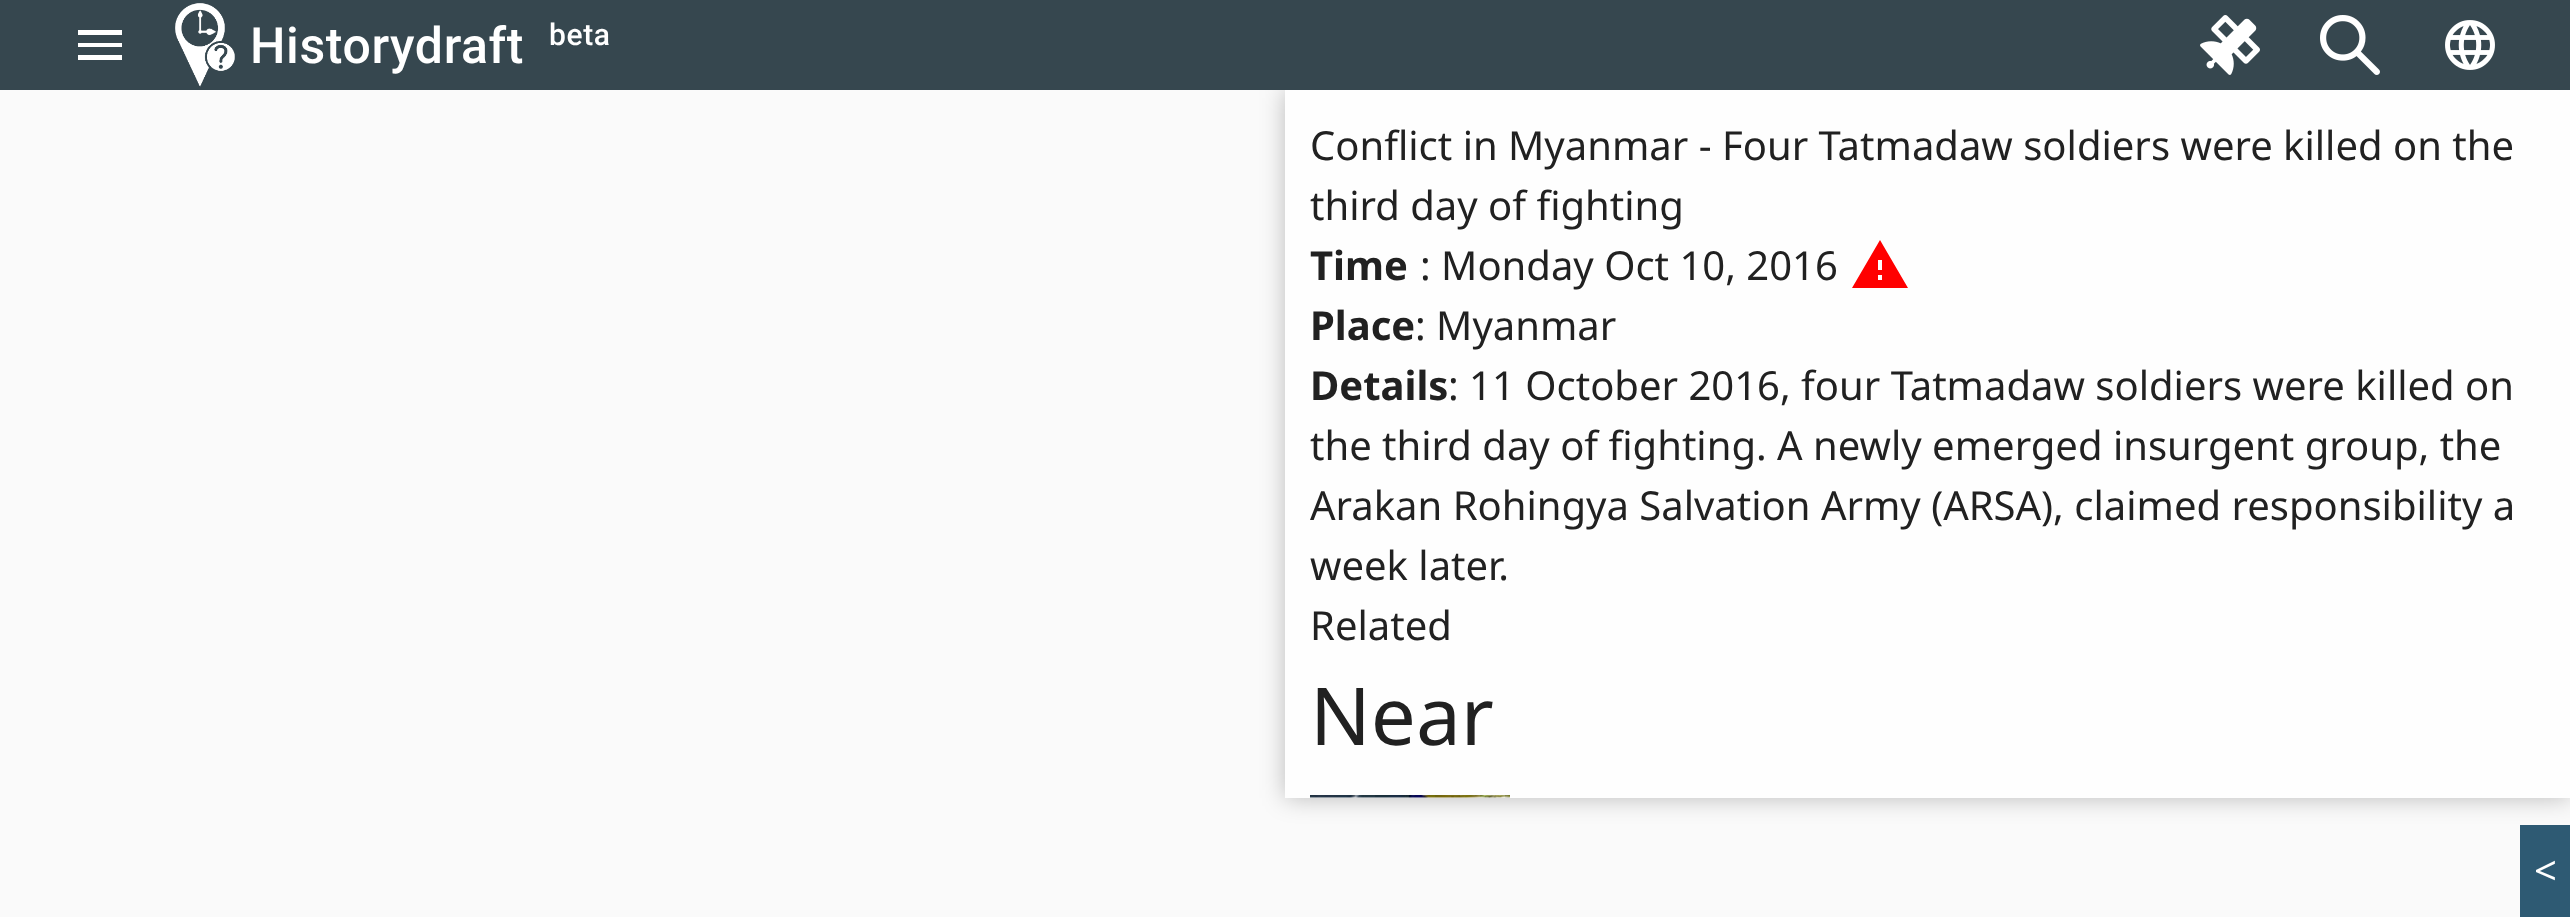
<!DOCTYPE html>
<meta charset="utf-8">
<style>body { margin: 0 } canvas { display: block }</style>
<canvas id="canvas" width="2570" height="917"></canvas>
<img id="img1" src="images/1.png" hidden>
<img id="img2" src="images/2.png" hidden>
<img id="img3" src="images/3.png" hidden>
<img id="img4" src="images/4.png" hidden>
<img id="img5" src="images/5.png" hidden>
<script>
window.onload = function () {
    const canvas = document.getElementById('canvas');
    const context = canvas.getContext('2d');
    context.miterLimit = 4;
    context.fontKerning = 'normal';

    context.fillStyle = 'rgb(250, 250, 250)';
    context.fillRect(0, 0, 2570, 917);
    context.save();
    context.beginPath();
    context.moveTo(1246, 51);
    context.lineTo(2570, 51);
    context.lineTo(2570, 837);
    context.lineTo(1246, 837);
    context.closePath();
    context.moveTo(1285, 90);
    context.lineTo(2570, 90);
    context.lineTo(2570, 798);
    context.lineTo(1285, 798);
    context.closePath();
    context.clip('evenodd');
    context.fillStyle = 'rgba(0, 0, 0, 0.25)';
    context.filter = 'blur(12.5px)';
    context.beginPath();
    context.rect(1285, 90, 1285, 708);
    context.fill();
    context.filter = 'none';
    context.restore();
    context.fillStyle = 'rgb(54, 71, 79)';
    context.fillRect(0, 0, 2570, 90);
    context.fillStyle = 'rgb(255, 255, 255)';
    context.beginPath();
    context.moveTo(78, 30);
    context.lineTo(122, 30);
    context.lineTo(122, 35);
    context.lineTo(78, 35);
    context.closePath();
    context.moveTo(78, 47);
    context.lineTo(78, 43);
    context.lineTo(122, 43);
    context.lineTo(122, 47);
    context.closePath();
    context.moveTo(78, 60);
    context.lineTo(78, 55);
    context.lineTo(122, 55);
    context.lineTo(122, 60);
    context.closePath();
    context.fill();
    context.drawImage(document.getElementById('img1'), 175, 3, 60, 84);
    context.drawImage(document.getElementById('img2'), 2200, 15, 60, 60);
    context.drawImage(document.getElementById('img3'), 2320, 15, 60, 60);
    context.drawImage(document.getElementById('img4'), 2445, 20, 50, 50);
    context.fillStyle = 'rgba(255, 255, 255, 0.67)';
    context.fillRect(1285, 90, 1285, 708);
    context.fillStyle = 'rgb(255, 0, 0)';
    context.beginPath();
    context.moveTo(1882, 270);
    context.lineTo(1882, 260);
    context.lineTo(1878, 260);
    context.lineTo(1878, 270);
    context.closePath();
    context.moveTo(1882, 280);
    context.lineTo(1882, 275);
    context.lineTo(1878, 275);
    context.lineTo(1878, 280);
    context.closePath();
    context.moveTo(1852, 288);
    context.lineTo(1880, 240);
    context.lineTo(1908, 288);
    context.closePath();
    context.fill();
    context.drawImage(document.getElementById('img5'), 1310, 795, 200, 3);
    context.fillStyle = 'rgb(46, 90, 115)';
    context.fillRect(2520, 825, 50, 92);
    context.letterSpacing = '0.6px';
    context.font = '500 50px Roboto';
    context.fillStyle = 'rgb(255, 255, 255)';
    context.fillText('Historydraft', 250, 63);
    context.font = '500 30px Roboto';
    context.fillText('beta', 549, 45);
    context.letterSpacing = '0px';
    context.font = '40px Noto Sans';
    context.fillStyle = 'rgb(33, 33, 33)';
    context.fillText('Conflict in Myanmar - Four Tatmadaw soldiers were killed on the', 1310, 160);
    context.fillText('third day of fighting', 1310, 220);
    context.font = 'bold 40px Noto Sans';
    context.fillText('Time', 1310, 280);
    context.font = '40px Noto Sans';
    context.fillText(': Monday Oct 10, 2016', 1420, 280);
    context.font = 'bold 40px Noto Sans';
    context.fillText('Place', 1310, 340);
    context.font = '40px Noto Sans';
    context.fillText(': Myanmar', 1415, 340);
    context.font = 'bold 40px Noto Sans';
    context.fillText('Details', 1310, 400);
    context.font = '40px Noto Sans';
    context.fillText(': 11 October 2016, four Tatmadaw soldiers were killed on', 1448, 400);
    context.fillText('the third day of fighting. A newly emerged insurgent group, the', 1310, 460);
    context.fillText('Arakan Rohingya Salvation Army (ARSA), claimed responsibility a', 1310, 520);
    context.fillText('week later.', 1310, 580);
    context.fillText('Related', 1310, 640);
    context.font = '80px Noto Sans';
    context.fillText('Near', 1310, 745);
    context.font = '40px Noto Sans';
    context.fillStyle = 'rgb(255, 255, 255)';
    context.fillText('<', 2534, 885);
};
</script>
